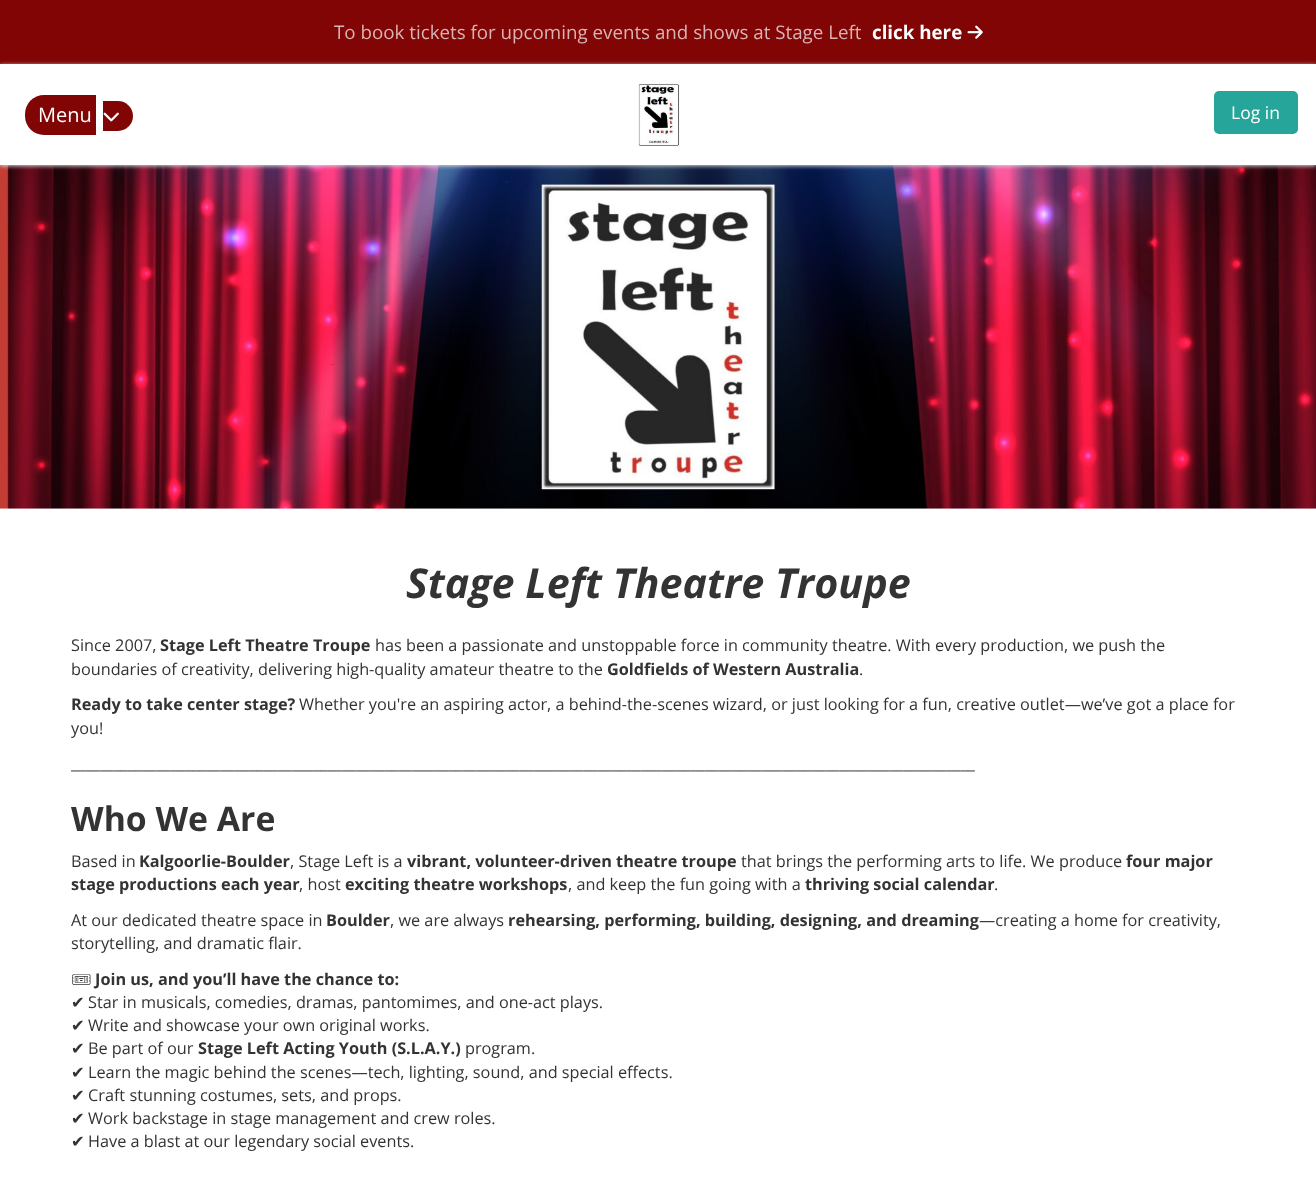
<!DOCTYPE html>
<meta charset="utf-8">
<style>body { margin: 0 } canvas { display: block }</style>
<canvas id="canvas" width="1316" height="1179"></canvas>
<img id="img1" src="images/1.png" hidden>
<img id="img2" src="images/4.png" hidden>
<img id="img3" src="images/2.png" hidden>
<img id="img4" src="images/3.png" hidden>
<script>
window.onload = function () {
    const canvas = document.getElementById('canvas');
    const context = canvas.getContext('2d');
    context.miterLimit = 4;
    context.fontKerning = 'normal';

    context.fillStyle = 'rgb(255, 255, 255)';
    context.fillRect(0, 0, 1316, 1179);
    context.fillStyle = 'rgb(129, 5, 5)';
    context.fillRect(0, 0, 1316, 64);
    context.drawImage(document.getElementById('img1'), 967, 25, 16, 14);
    context.drawImage(document.getElementById('img2'), 0, 165, 1316, 344);
    context.save();
    context.beginPath();
    context.moveTo(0, 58);
    context.lineTo(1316, 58);
    context.lineTo(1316, 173);
    context.lineTo(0, 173);
    context.closePath();
    context.moveTo(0, 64);
    context.lineTo(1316, 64);
    context.lineTo(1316, 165);
    context.lineTo(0, 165);
    context.closePath();
    context.clip('evenodd');
    context.fillStyle = 'rgb(221, 221, 221)';
    context.filter = 'blur(2px)';
    context.beginPath();
    context.rect(0, 65, 1316, 101);
    context.fill();
    context.filter = 'none';
    context.restore();
    context.beginPath();
    context.roundRect(25, 95, 71, 40, [19, 0, 0, 19]);
    context.fill();
    context.beginPath();
    context.roundRect(103, 101, 30, 30, [0, 15, 15, 0]);
    context.fill();
    context.drawImage(document.getElementById('img3'), 103, 112, 16, 10);
    context.drawImage(document.getElementById('img4'), 638, 83, 42, 63);
    context.fillStyle = 'rgb(38, 166, 154)';
    context.beginPath();
    context.roundRect(1214, 91, 84, 43, 5);
    context.fill();
    context.font = '18.75px Open Sans';
    context.fillStyle = 'rgb(217, 180, 180)';
    context.fillText('To book tickets for upcoming events and shows at Stage Left', 334, 39);
    context.font = 'bold 18.75px Open Sans';
    context.fillStyle = 'rgb(255, 255, 255)';
    context.fillText('click here', 872, 39);
    context.font = '20px Open Sans';
    context.fillText('Menu', 38, 122);
    context.font = '17.5px Open Sans';
    context.fillText('Log in', 1231, 119);
    context.font = 'italic bold 41.25px Open Sans';
    context.fillStyle = 'rgb(51, 51, 51)';
    context.fillText('Stage Left Theatre Troupe', 406, 598);
    context.font = '16.25px Open Sans';
    context.fillText('Since 2007,', 71, 651);
    context.font = 'bold 16.25px Open Sans';
    context.fillText('Stage Left Theatre Troupe', 160, 651);
    context.font = '16.25px Open Sans';
    context.fillText('has been a passionate and unstoppable force in community theatre. With every production, we push the', 375, 651);
    context.fillText('boundaries of creativity, delivering high-quality amateur theatre to the', 71, 675);
    context.font = 'bold 16.25px Open Sans';
    context.fillText('Goldfields of Western Australia', 607, 675);
    context.font = '16.25px Open Sans';
    context.fillText('.', 859, 675);
    context.font = 'bold 16.25px Open Sans';
    context.fillText('Ready to take center stage?', 71, 710);
    context.font = '16.25px Open Sans';
    context.fillText('Whether you\'re an aspiring actor, a behind-the-scenes wizard, or just looking for a fun, creative outlet—we’ve got a place for', 299, 710);
    context.fillText('you!', 71, 734);
    context.fillText('_______________________________________________________________________________________________________________________________', 71, 769);
    context.font = 'bold 33.75px Open Sans';
    context.fillText('Who We Are', 71, 831);
    context.font = '16.25px Open Sans';
    context.fillText('Based in', 71, 867);
    context.font = 'bold 16.25px Open Sans';
    context.fillText('Kalgoorlie-Boulder', 139, 867);
    context.font = '16.25px Open Sans';
    context.fillText(', Stage Left is a', 290, 867);
    context.font = 'bold 16.25px Open Sans';
    context.fillText('vibrant, volunteer-driven theatre troupe', 407, 867);
    context.font = '16.25px Open Sans';
    context.fillText('that brings the performing arts to life. We produce', 741, 867);
    context.font = 'bold 16.25px Open Sans';
    context.fillText('four major', 1126, 867);
    context.fillText('stage productions each year', 71, 890);
    context.font = '16.25px Open Sans';
    context.fillText(', host', 299, 890);
    context.font = 'bold 16.25px Open Sans';
    context.fillText('exciting theatre workshops', 345, 890);
    context.font = '16.25px Open Sans';
    context.fillText(', and keep the fun going with a', 568, 890);
    context.font = 'bold 16.25px Open Sans';
    context.fillText('thriving social calendar', 805, 890);
    context.font = '16.25px Open Sans';
    context.fillText('.', 994, 890);
    context.fillText('At our dedicated theatre space in', 71, 926);
    context.font = 'bold 16.25px Open Sans';
    context.fillText('Boulder', 326, 926);
    context.font = '16.25px Open Sans';
    context.fillText(', we are always', 390, 926);
    context.font = 'bold 16.25px Open Sans';
    context.fillText('rehearsing, performing, building, designing, and dreaming', 508, 926);
    context.font = '16.25px Open Sans';
    context.fillText('—creating a home for creativity,', 979, 926);
    context.fillText('storytelling, and dramatic flair.', 71, 949);
    context.font = '16.25px Noto Emoji';
    context.fillText('🎟', 71, 985);
    context.font = 'bold 16.25px Open Sans';
    context.fillText('Join us, and you’ll have the chance to:', 95, 985);
    context.font = '16.25px DejaVu Sans';
    context.fillText('✔', 71, 1008);
    context.font = '16.25px Open Sans';
    context.fillText('Star in musicals, comedies, dramas, pantomimes, and one-act plays.', 88, 1008);
    context.font = '16.25px DejaVu Sans';
    context.fillText('✔', 71, 1031);
    context.font = '16.25px Open Sans';
    context.fillText('Write and showcase your own original works.', 88, 1031);
    context.font = '16.25px DejaVu Sans';
    context.fillText('✔', 71, 1054);
    context.font = '16.25px Open Sans';
    context.fillText('Be part of our', 88, 1054);
    context.font = 'bold 16.25px Open Sans';
    context.fillText('Stage Left Acting Youth (S.L.A.Y.)', 198, 1054);
    context.font = '16.25px Open Sans';
    context.fillText('program.', 465, 1054);
    context.font = '16.25px DejaVu Sans';
    context.fillText('✔', 71, 1078);
    context.font = '16.25px Open Sans';
    context.fillText('Learn the magic behind the scenes—tech, lighting, sound, and special effects.', 88, 1078);
    context.font = '16.25px DejaVu Sans';
    context.fillText('✔', 71, 1101);
    context.font = '16.25px Open Sans';
    context.fillText('Craft stunning costumes, sets, and props.', 88, 1101);
    context.font = '16.25px DejaVu Sans';
    context.fillText('✔', 71, 1124);
    context.font = '16.25px Open Sans';
    context.fillText('Work backstage in stage management and crew roles.', 88, 1124);
    context.font = '16.25px DejaVu Sans';
    context.fillText('✔', 71, 1147);
    context.font = '16.25px Open Sans';
    context.fillText('Have a blast at our legendary social events.', 88, 1147);
};
</script>
